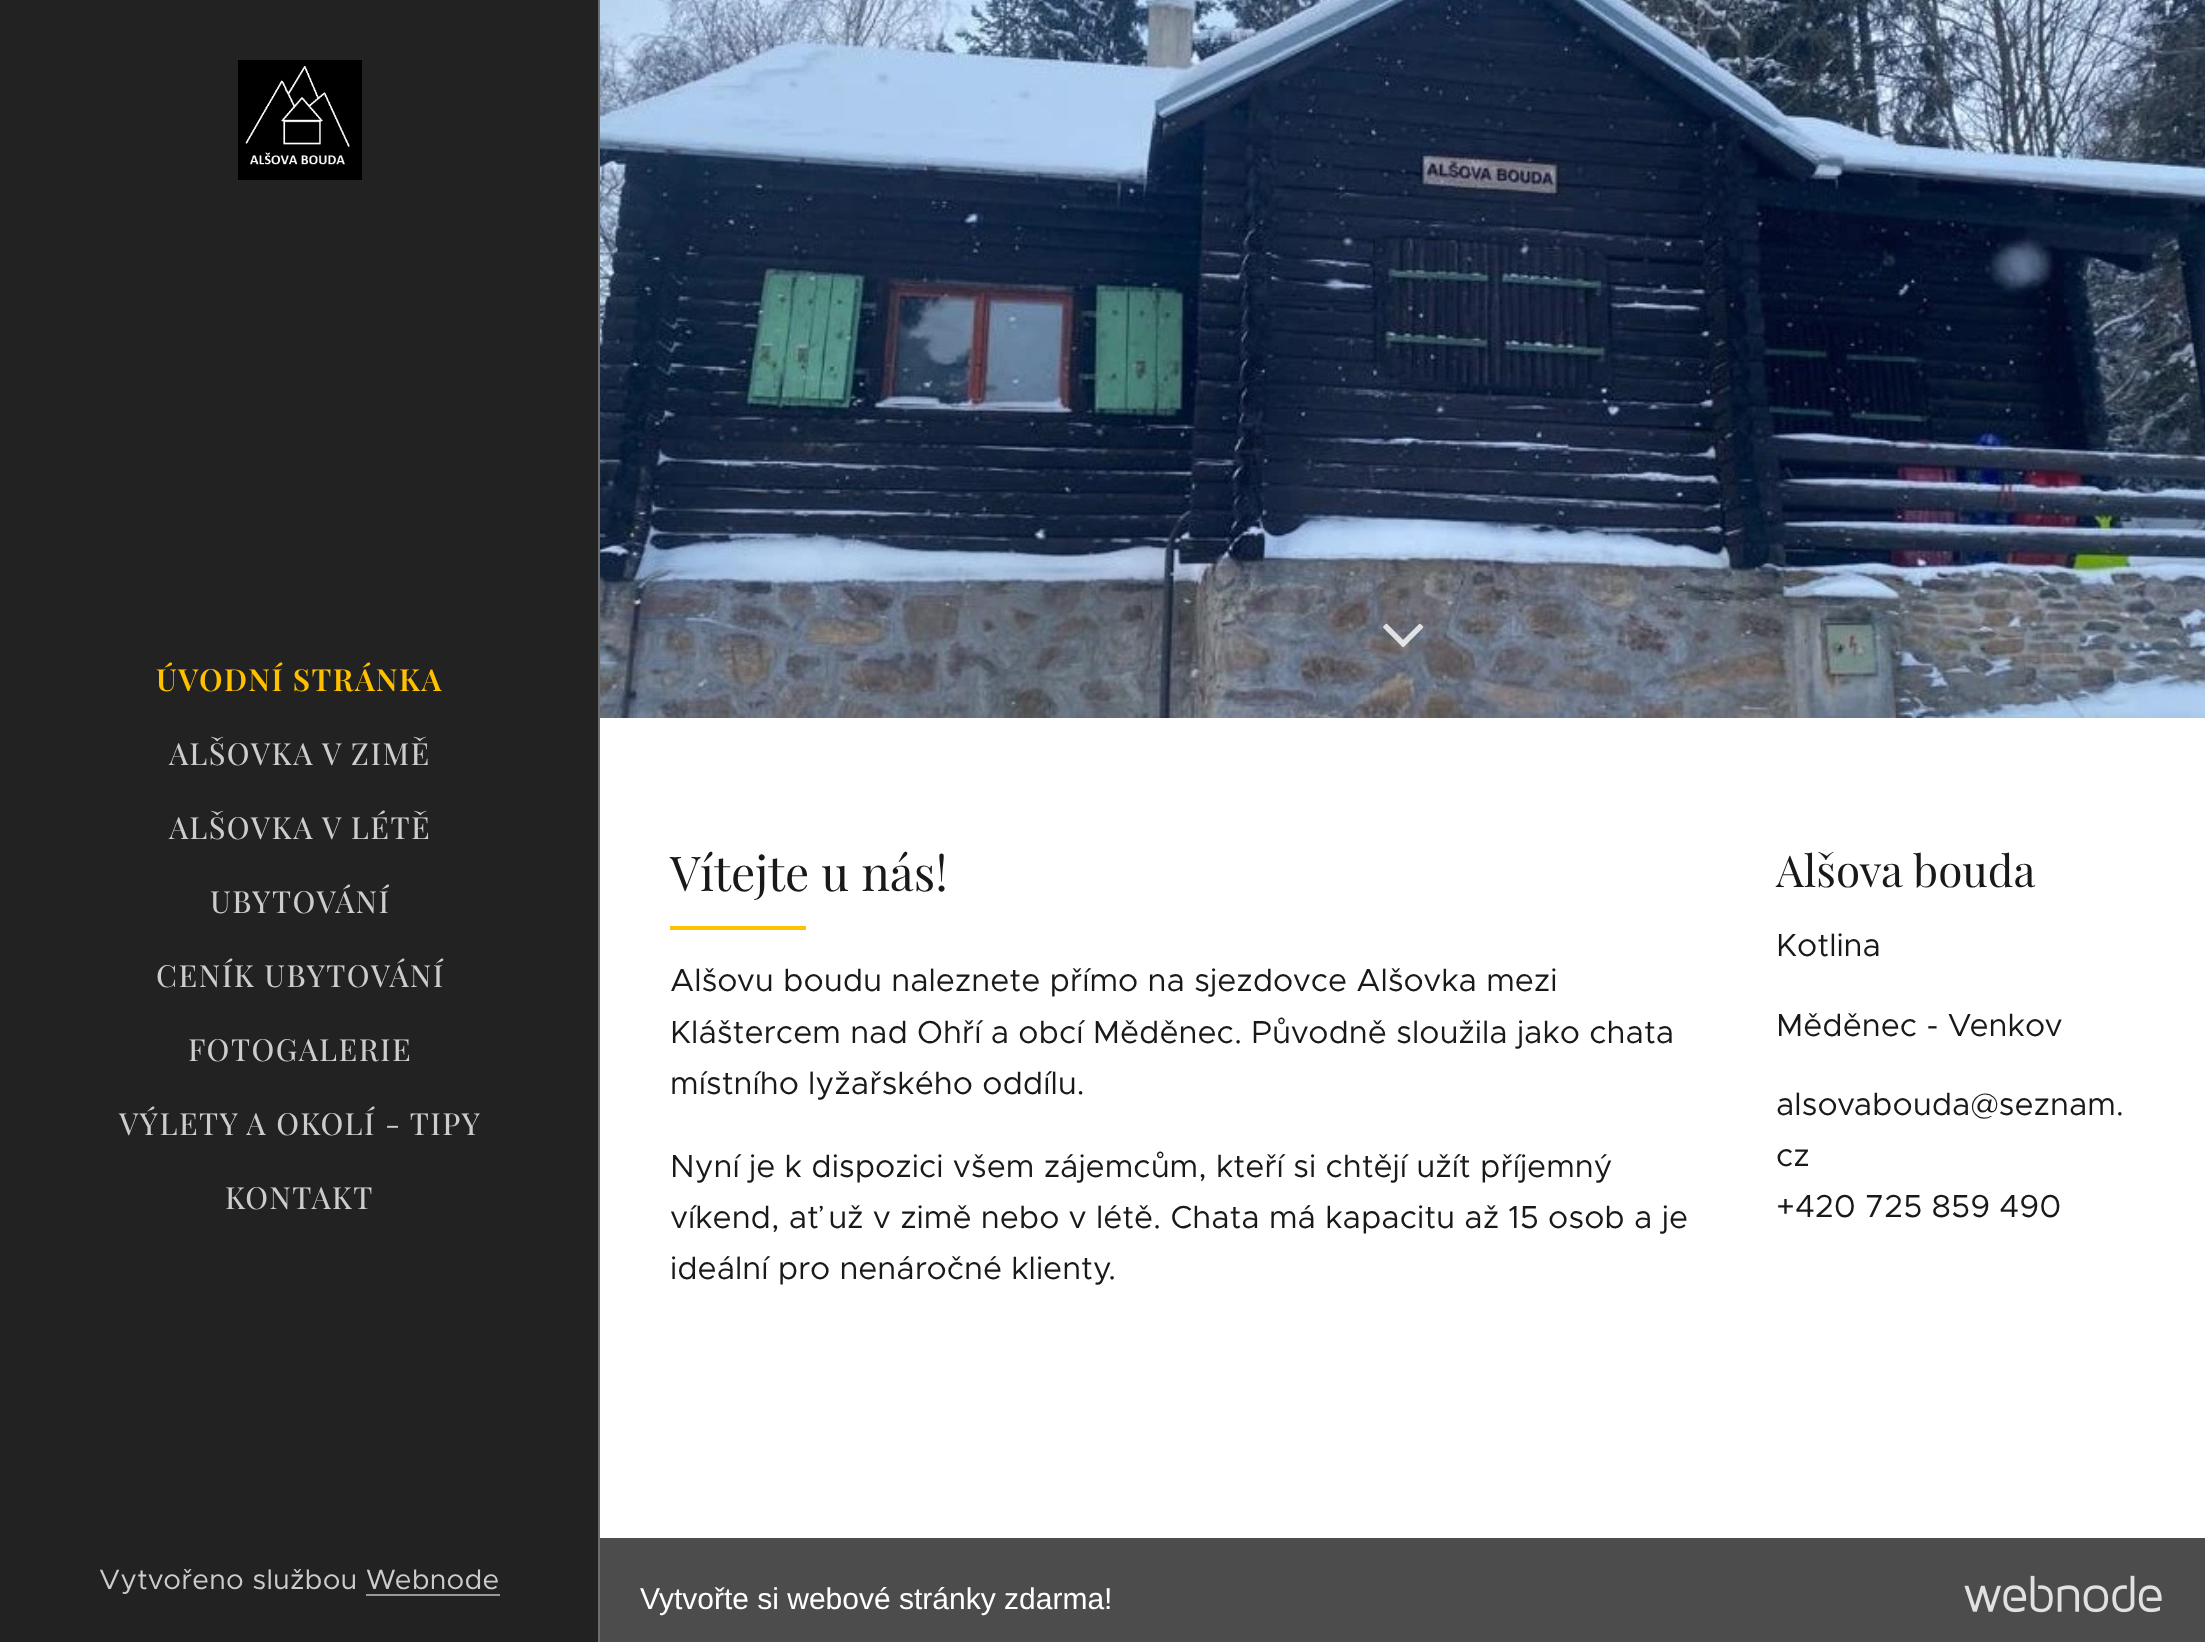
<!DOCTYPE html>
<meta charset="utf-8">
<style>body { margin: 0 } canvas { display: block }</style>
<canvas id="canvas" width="2205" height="1642"></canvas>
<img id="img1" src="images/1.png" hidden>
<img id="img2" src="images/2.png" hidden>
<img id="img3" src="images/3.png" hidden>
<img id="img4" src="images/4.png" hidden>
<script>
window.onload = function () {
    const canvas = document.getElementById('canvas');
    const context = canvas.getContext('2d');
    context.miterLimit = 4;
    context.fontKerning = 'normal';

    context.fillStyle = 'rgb(255, 255, 255)';
    context.fillRect(0, 0, 2205, 1642);
    context.fillStyle = 'rgb(34, 34, 34)';
    context.fillRect(0, 0, 598, 1642);
    context.drawImage(document.getElementById('img1'), 238, 60, 124, 120);
    context.fillStyle = 'rgb(110, 110, 110)';
    context.fillRect(598, 0, 2, 1642);
    context.drawImage(document.getElementById('img2'), 600, 0, 1605, 718);
    context.drawImage(document.getElementById('img3'), 1383, 623, 41, 25);
    context.fillStyle = 'rgb(255, 192, 0)';
    context.fillRect(670, 926, 136, 4);
    context.fillStyle = 'rgb(76, 76, 76)';
    context.fillRect(600, 1538, 1605, 104);
    context.drawImage(document.getElementById('img4'), 1964, 1575, 198, 38);
    context.letterSpacing = '1.5px';
    context.font = '600 30.4px Playfair Display';
    context.fillStyle = 'rgb(255, 192, 0)';
    context.fillText('ÚVODNÍ STRÁNKA', 156, 691);
    context.font = '30.4px "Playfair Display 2"';
    context.fillStyle = 'rgb(204, 204, 204)';
    context.fillText('ALŠOVKA V ZIMĚ', 169, 765);
    context.fillText('ALŠOVKA V LÉTĚ', 169, 839);
    context.fillText('UBYTOVÁNÍ', 210, 913);
    context.fillText('CENÍK UBYTOVÁNÍ', 156, 987);
    context.fillText('FOTOGALERIE', 188, 1061);
    context.fillText('VÝLETY A OKOLÍ - TIPY', 119, 1135);
    context.fillText('KONTAKT', 225, 1209);
    context.letterSpacing = '0px';
    context.font = '48px Playfair Display';
    context.fillStyle = 'rgb(25, 25, 25)';
    context.fillText('Vítejte u nás!', 670, 891);
    context.font = '32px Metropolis';
    context.fillText('Alšovu boudu naleznete přímo na sjezdovce Alšovka mezi', 670, 991);
    context.fillText('Kláštercem nad Ohří a obcí Měděnec. Původně sloužila jako chata', 670, 1043);
    context.fillText('místního lyžařského oddílu.', 670, 1094);
    context.fillText('Nyní je k dispozici všem zájemcům, kteří si chtějí užít příjemný', 670, 1177);
    context.fillText('víkend, ať už v zimě nebo v létě. Chata má kapacitu až 15 osob a je', 670, 1228);
    context.fillText('ideální pro nenáročné klienty.', 670, 1279);
    context.font = '44px Playfair Display';
    context.fillText('Alšova bouda', 1776, 887);
    context.font = '32px Metropolis';
    context.fillText('Kotlina', 1776, 956);
    context.fillText('Měděnec - Venkov', 1776, 1036);
    context.fillText('alsovabouda@seznam.', 1776, 1115);
    context.fillText('cz', 1776, 1166);
    context.fillText('+420 725 859 490', 1776, 1217);
    context.letterSpacing = '0.25px';
    context.font = '28px Metropolis';
    context.fillStyle = 'rgb(204, 204, 204)';
    context.fillText('Vytvořeno službou Webnode', 99, 1589);
    context.fillStyle = 'rgb(153, 153, 153)';
    context.fillRect(366, 1594, 134, 2);
    context.letterSpacing = '0px';
    context.font = '30px Liberation Sans';
    context.fillStyle = 'rgb(255, 255, 255)';
    context.fillText('Vytvořte si webové stránky zdarma!', 640, 1609);
};
</script>
